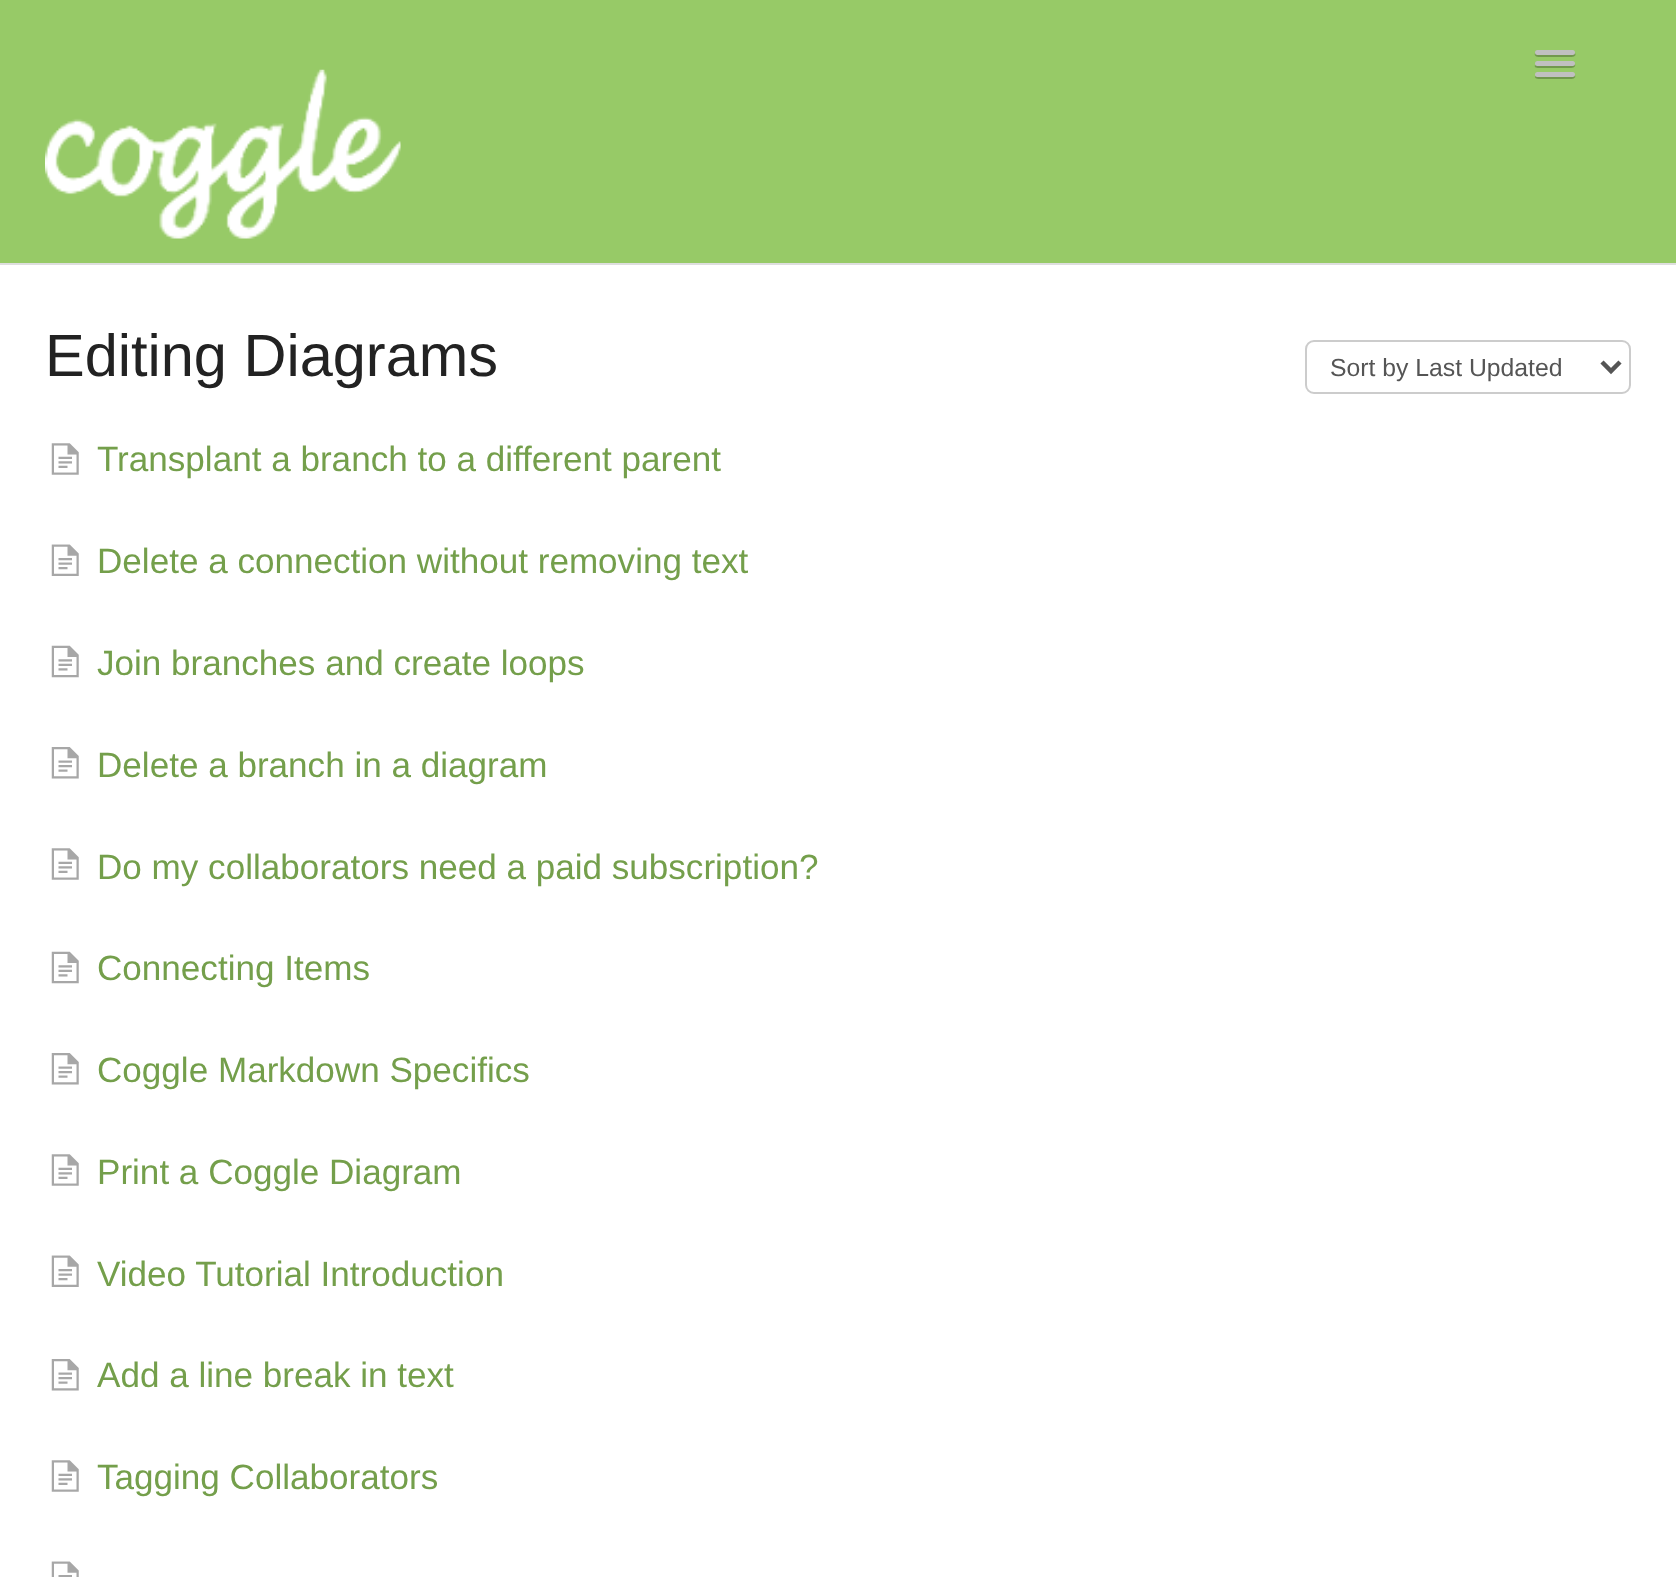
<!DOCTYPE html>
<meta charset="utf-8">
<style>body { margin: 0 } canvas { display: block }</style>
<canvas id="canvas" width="1676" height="1577"></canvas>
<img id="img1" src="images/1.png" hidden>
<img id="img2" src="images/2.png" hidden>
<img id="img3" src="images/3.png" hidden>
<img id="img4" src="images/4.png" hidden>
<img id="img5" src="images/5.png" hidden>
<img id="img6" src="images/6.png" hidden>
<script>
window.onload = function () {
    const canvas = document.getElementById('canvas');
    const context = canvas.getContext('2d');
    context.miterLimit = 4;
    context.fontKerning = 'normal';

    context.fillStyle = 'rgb(151, 202, 103)';
    context.fillRect(0, 0, 1676, 1577);
    context.fillStyle = 'rgb(113, 152, 77)';
    context.beginPath();
    context.moveTo(1535, 53);
    context.bezierCurveTo(1533, 58, 1542, 57, 1543, 57);
    context.lineTo(1567, 57);
    context.bezierCurveTo(1567, 57, 1578, 58, 1575, 53);
    context.lineTo(1573, 54);
    context.bezierCurveTo(1569, 54, 1537, 55, 1535, 53);
    context.closePath();
    context.fill();
    context.fillStyle = 'rgb(192, 192, 192)';
    context.beginPath();
    context.roundRect(1535, 50, 40, 5, 2.5);
    context.fill();
    context.fillStyle = 'rgb(113, 152, 77)';
    context.beginPath();
    context.moveTo(1535, 65);
    context.bezierCurveTo(1533, 69, 1542, 68, 1543, 68);
    context.lineTo(1567, 68);
    context.bezierCurveTo(1567, 68, 1577, 69, 1575, 64);
    context.lineTo(1573, 65);
    context.bezierCurveTo(1569, 66, 1536, 66, 1535, 65);
    context.closePath();
    context.fill();
    context.fillStyle = 'rgb(192, 192, 192)';
    context.beginPath();
    context.roundRect(1535, 61, 40, 5, 2.5);
    context.fill();
    context.fillStyle = 'rgb(113, 152, 77)';
    context.beginPath();
    context.moveTo(1535, 76);
    context.bezierCurveTo(1534, 80, 1542, 79, 1543, 79);
    context.lineTo(1567, 79);
    context.bezierCurveTo(1568, 79, 1577, 80, 1575, 75);
    context.lineTo(1573, 76);
    context.bezierCurveTo(1569, 77, 1536, 77, 1535, 76);
    context.closePath();
    context.fill();
    context.fillStyle = 'rgb(192, 192, 192)';
    context.beginPath();
    context.roundRect(1535, 72, 40, 5, 2.5);
    context.fill();
    context.drawImage(document.getElementById('img1'), 45, 69, 356, 170);
    context.fillStyle = 'rgb(255, 255, 255)';
    context.fillRect(0, 265, 1676, 1312);
    context.fillStyle = 'rgb(222, 222, 222)';
    context.fillRect(0, 263, 1676, 2);
    context.beginPath();
    context.roundRect(1306, 341, 324, 52, 8);
    context.strokeStyle = 'rgb(204, 204, 204)';
    context.lineWidth = 2;
    context.stroke();
    context.beginPath();
    context.moveTo(1602, 362);
    context.lineTo(1611, 371);
    context.lineTo(1620, 362);
    context.strokeStyle = 'rgb(85, 85, 85)';
    context.lineWidth = 4.5;
    context.stroke();
    context.drawImage(document.getElementById('img2'), 51, 443, 28, 32);
    context.drawImage(document.getElementById('img3'), 51, 544, 28, 32);
    context.drawImage(document.getElementById('img4'), 51, 645, 28, 33);
    context.drawImage(document.getElementById('img5'), 51, 747, 28, 32);
    context.drawImage(document.getElementById('img2'), 51, 848, 28, 32);
    context.drawImage(document.getElementById('img4'), 51, 951, 28, 33);
    context.drawImage(document.getElementById('img5'), 51, 1053, 28, 32);
    context.drawImage(document.getElementById('img2'), 51, 1154, 28, 32);
    context.drawImage(document.getElementById('img3'), 51, 1255, 28, 32);
    context.drawImage(document.getElementById('img5'), 51, 1359, 28, 32);
    context.drawImage(document.getElementById('img2'), 51, 1460, 28, 32);
    context.drawImage(document.getElementById('img6'), 51, 1561, 28, 16);
    context.font = '59.5px Liberation Sans';
    context.fillStyle = 'rgb(34, 34, 34)';
    context.fillText('Editing Diagrams', 45, 376);
    context.font = '24.75px Liberation Sans';
    context.fillStyle = 'rgb(85, 85, 85)';
    context.fillText('Sort by Last Updated', 1330, 376);
    context.font = '35.1px Liberation Sans';
    context.fillStyle = 'rgb(116, 159, 75)';
    context.fillText('Transplant a branch to a different parent', 97, 471);
    context.fillText('Delete a connection without removing text', 97, 573);
    context.fillText('Join branches and create loops', 97, 675);
    context.fillText('Delete a branch in a diagram', 97, 777);
    context.fillText('Do my collaborators need a paid subscription?', 97, 879);
    context.fillText('Connecting Items', 97, 980);
    context.fillText('Coggle Markdown Specifics', 97, 1082);
    context.fillText('Print a Coggle Diagram', 97, 1184);
    context.fillText('Video Tutorial Introduction', 97, 1286);
    context.fillText('Add a line break in text', 97, 1387);
    context.fillText('Tagging Collaborators', 97, 1489);
};
</script>
